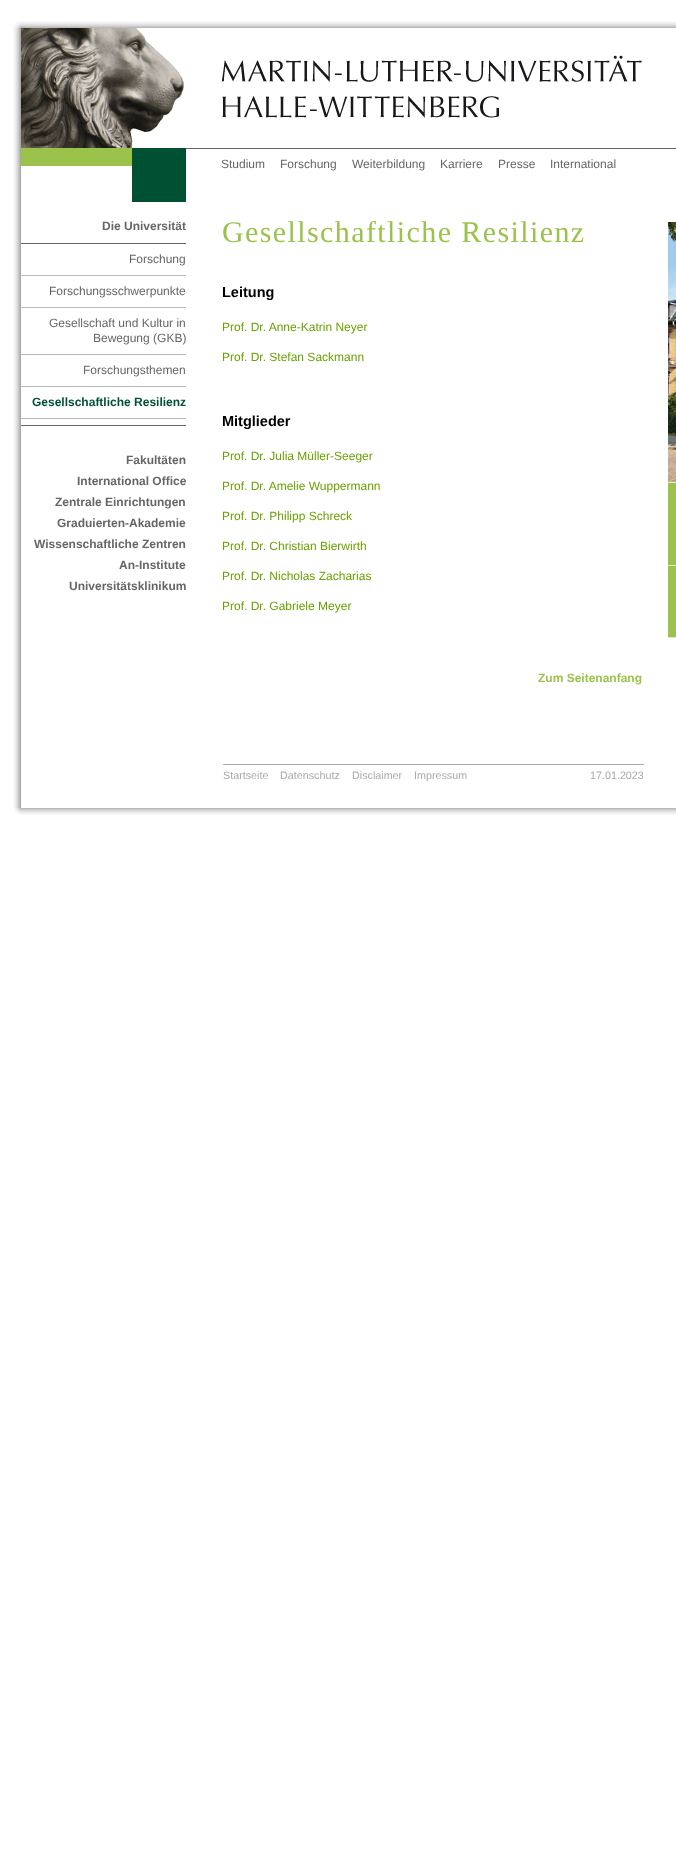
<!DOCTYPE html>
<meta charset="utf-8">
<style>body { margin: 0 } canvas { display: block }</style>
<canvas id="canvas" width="676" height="1859"></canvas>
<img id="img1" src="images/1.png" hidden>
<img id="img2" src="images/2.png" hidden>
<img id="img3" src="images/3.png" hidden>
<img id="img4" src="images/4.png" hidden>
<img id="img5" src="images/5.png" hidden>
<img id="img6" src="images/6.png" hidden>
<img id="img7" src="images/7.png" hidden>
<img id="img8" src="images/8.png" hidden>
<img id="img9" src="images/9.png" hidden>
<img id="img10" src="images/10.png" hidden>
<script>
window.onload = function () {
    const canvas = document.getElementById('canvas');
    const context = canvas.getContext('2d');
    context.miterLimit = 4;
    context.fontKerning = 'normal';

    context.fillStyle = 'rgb(255, 255, 255)';
    context.fillRect(0, 0, 676, 1859);
    context.drawImage(document.getElementById('img1'), 14, 21, 7, 7);
    context.drawImage(document.getElementById('img2'), 21, 21, 655, 7);
    context.drawImage(document.getElementById('img3'), 13, 28, 8, 120);
    context.drawImage(document.getElementById('img4'), 21, 28, 164, 120);
    context.drawImage(document.getElementById('img5'), 221, 55, 421, 63);
    context.drawImage(document.getElementById('img6'), 13, 148, 8, 54);
    context.fillStyle = 'rgb(155, 195, 75)';
    context.fillRect(21, 148, 111, 18);
    context.fillStyle = 'rgb(0, 81, 51)';
    context.fillRect(132, 148, 54, 54);
    context.fillStyle = 'rgb(102, 102, 102)';
    context.fillRect(186, 148, 490, 1);
    context.drawImage(document.getElementById('img7'), 13, 202, 8, 606);
    context.fillRect(21, 243, 165, 1);
    context.fillRect(21, 425, 165, 1);
    context.fillStyle = 'rgb(187, 187, 187)';
    context.fillRect(21, 275, 165, 1);
    context.fillRect(21, 307, 165, 1);
    context.fillRect(21, 354, 165, 1);
    context.fillRect(21, 386, 165, 1);
    context.fillRect(21, 418, 165, 1);
    context.fillStyle = 'rgb(170, 170, 170)';
    context.fillRect(223, 764, 421, 1);
    context.drawImage(document.getElementById('img8'), 668, 222, 8, 260);
    context.fillStyle = 'rgb(224, 239, 198)';
    context.fillRect(668, 482, 8, 1);
    context.fillStyle = 'rgb(155, 195, 75)';
    context.fillRect(668, 483, 8, 154);
    context.fillStyle = 'rgb(224, 239, 198)';
    context.fillRect(668, 565, 8, 1);
    context.fillRect(668, 637, 8, 1);
    context.drawImage(document.getElementById('img9'), 14, 808, 7, 7);
    context.drawImage(document.getElementById('img10'), 21, 808, 655, 7);
    context.font = '12px Liberation Sans';
    context.fillStyle = 'rgb(102, 102, 102)';
    context.fillText('Studium', 221, 168);
    context.fillText('Forschung', 280, 168);
    context.fillText('Weiterbildung', 352, 168);
    context.fillText('Karriere', 440, 168);
    context.fillText('Presse', 498, 168);
    context.fillText('International', 550, 168);
    context.font = 'bold 12px Liberation Sans';
    context.fillText('Die Universität', 102, 230);
    context.font = '12px Liberation Sans';
    context.fillText('Forschung', 129, 263);
    context.fillText('Forschungsschwerpunkte', 49, 295);
    context.fillText('Gesellschaft und Kultur in', 49, 327);
    context.fillText('Bewegung (GKB)', 93, 342);
    context.fillText('Forschungsthemen', 83, 374);
    context.font = 'bold 12px Liberation Sans';
    context.fillStyle = 'rgb(0, 81, 51)';
    context.fillText('Gesellschaftliche Resilienz', 32, 406);
    context.fillStyle = 'rgb(102, 102, 102)';
    context.fillText('Fakultäten', 126, 464);
    context.fillText('International Office', 77, 485);
    context.fillText('Zentrale Einrichtungen', 55, 506);
    context.fillText('Graduierten-Akademie', 57, 527);
    context.fillText('Wissenschaftliche Zentren', 34, 548);
    context.fillText('An-Institute', 119, 569);
    context.fillText('Universitätsklinikum', 69, 590);
    context.letterSpacing = '1.4px';
    context.font = '30px Liberation Serif';
    context.fillStyle = 'rgb(155, 195, 75)';
    context.fillText('Gesellschaftliche Resilienz', 222, 242);
    context.letterSpacing = '0px';
    context.font = 'bold 14.5px Liberation Sans';
    context.fillStyle = 'rgb(0, 0, 0)';
    context.fillText('Leitung', 222, 297);
    context.font = '12px Liberation Sans';
    context.fillStyle = 'rgb(106, 161, 1)';
    context.fillText('Prof. Dr. Anne-Katrin Neyer', 222, 331);
    context.fillText('Prof. Dr. Stefan Sackmann', 222, 361);
    context.font = 'bold 14.5px Liberation Sans';
    context.fillStyle = 'rgb(0, 0, 0)';
    context.fillText('Mitglieder', 222, 426);
    context.font = '12px Liberation Sans';
    context.fillStyle = 'rgb(106, 161, 1)';
    context.fillText('Prof. Dr. Julia Müller-Seeger', 222, 460);
    context.fillText('Prof. Dr. Amelie Wuppermann', 222, 490);
    context.fillText('Prof. Dr. Philipp Schreck', 222, 520);
    context.fillText('Prof. Dr. Christian Bierwirth', 222, 550);
    context.fillText('Prof. Dr. Nicholas Zacharias', 222, 580);
    context.fillText('Prof. Dr. Gabriele Meyer', 222, 610);
    context.font = 'bold 12px Liberation Sans';
    context.fillStyle = 'rgb(155, 195, 75)';
    context.fillText('Zum Seitenanfang', 538, 682);
    context.font = '10.75px Liberation Sans';
    context.fillStyle = 'rgb(170, 170, 170)';
    context.fillText('Startseite', 223, 779);
    context.fillText('Datenschutz', 280, 779);
    context.fillText('Disclaimer', 352, 779);
    context.fillText('Impressum', 414, 779);
    context.fillText('17.01.2023', 590, 779);
};
</script>
